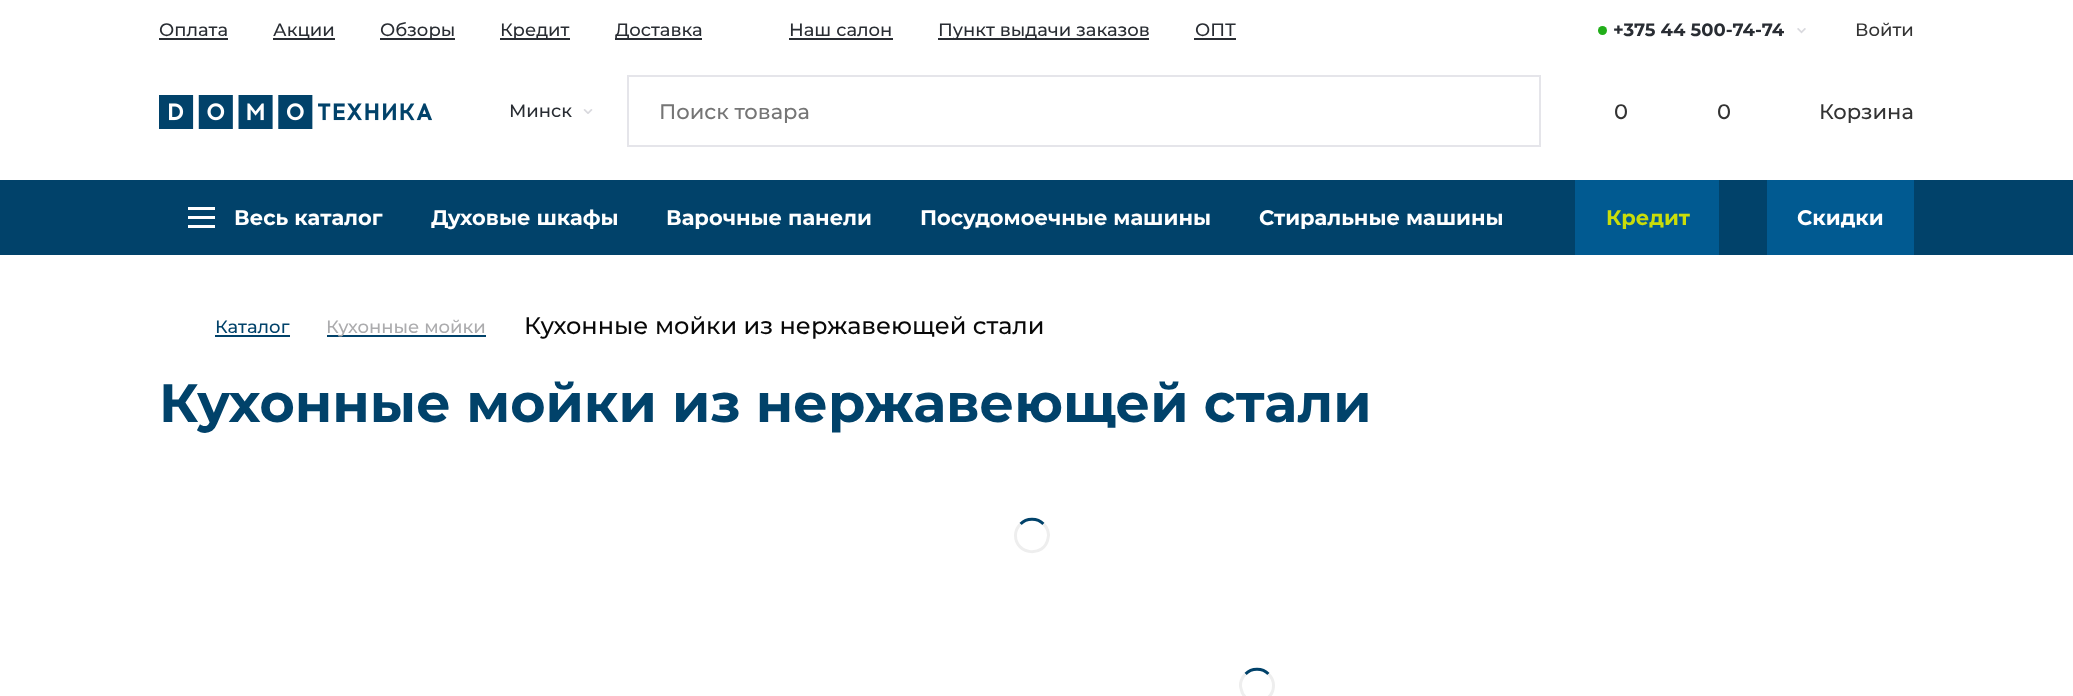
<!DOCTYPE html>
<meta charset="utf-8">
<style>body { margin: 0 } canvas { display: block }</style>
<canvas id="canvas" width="2073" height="696"></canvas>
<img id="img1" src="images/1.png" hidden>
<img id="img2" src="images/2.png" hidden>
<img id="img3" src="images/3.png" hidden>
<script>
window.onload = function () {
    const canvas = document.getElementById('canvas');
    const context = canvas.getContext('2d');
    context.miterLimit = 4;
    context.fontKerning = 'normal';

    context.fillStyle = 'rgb(255, 255, 255)';
    context.fillRect(0, 0, 2073, 696);
    context.fillStyle = 'rgb(41, 45, 51)';
    context.fillRect(159, 38, 69, 2);
    context.fillRect(273, 38, 62, 2);
    context.fillRect(380, 38, 75, 2);
    context.fillRect(500, 38, 70, 2);
    context.fillRect(615, 38, 87, 2);
    context.fillRect(789, 38, 104, 2);
    context.fillRect(938, 38, 211, 2);
    context.fillRect(1194, 38, 42, 2);
    context.fillStyle = 'rgb(33, 174, 25)';
    context.beginPath();
    context.arc(1602.5, 30.5, 4.5, 0, 2 * Math.PI);
    context.fill();
    context.drawImage(document.getElementById('img1'), 1797, 28, 9, 6);
    context.drawImage(document.getElementById('img2'), 159, 95, 273, 34);
    context.drawImage(document.getElementById('img3'), 583, 109, 10, 5);
    context.strokeStyle = 'rgb(229, 229, 234)';
    context.lineWidth = 2;
    context.strokeRect(628, 76, 912, 70);
    context.fillStyle = 'rgb(1, 66, 106)';
    context.fillRect(0, 180, 2073, 75);
    context.fillStyle = 'rgb(255, 255, 255)';
    context.fillRect(188, 207, 27, 3);
    context.fillRect(188, 216, 27, 3);
    context.fillRect(188, 225, 27, 3);
    context.fillStyle = 'rgb(1, 90, 145)';
    context.fillRect(1575, 180, 144, 75);
    context.fillRect(1767, 180, 147, 75);
    context.fillStyle = 'rgb(1, 66, 106)';
    context.fillRect(215, 335, 75, 2);
    context.fillRect(327, 335, 159, 2);
    context.beginPath();
    context.moveTo(1020.5, 524);
    context.bezierCurveTo(1026.5, 517.5, 1037.5, 517.5, 1043.5, 524);
    context.strokeStyle = 'rgb(1, 66, 106)';
    context.lineWidth = 3;
    context.stroke();
    context.beginPath();
    context.moveTo(1043.5, 524);
    context.bezierCurveTo(1047.5, 527.5, 1049.5, 533.5, 1048, 538.5);
    context.bezierCurveTo(1044.5, 558, 1015.5, 555, 1015.5, 535.5);
    context.bezierCurveTo(1015.5, 531, 1017.5, 527, 1020.5, 524);
    context.strokeStyle = 'rgb(238, 238, 238)';
    context.stroke();
    context.beginPath();
    context.moveTo(1245.5, 674);
    context.bezierCurveTo(1251.5, 667.5, 1262.5, 667.5, 1268.5, 674);
    context.strokeStyle = 'rgb(1, 66, 106)';
    context.stroke();
    context.beginPath();
    context.moveTo(1268.5, 674);
    context.bezierCurveTo(1271.5, 677, 1273.5, 681, 1273.5, 685.5);
    context.bezierCurveTo(1273.5, 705, 1244.5, 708, 1241, 688.5);
    context.bezierCurveTo(1239.5, 683.5, 1241.5, 677.5, 1245.5, 674);
    context.strokeStyle = 'rgb(238, 238, 238)';
    context.stroke();
    context.font = '500 18px Montserrat';
    context.fillStyle = 'rgb(41, 45, 51)';
    context.fillText('Оплата', 159, 36);
    context.fillText('Акции', 273, 36);
    context.fillText('Обзоры', 380, 36);
    context.fillText('Кредит', 500, 36);
    context.fillText('Доставка', 615, 36);
    context.fillText('Наш салон', 789, 36);
    context.fillText('Пункт выдачи заказов', 938, 36);
    context.fillText('ОПТ', 1195, 36);
    context.font = 'bold 18px Montserrat';
    context.fillText('+375 44 500-74-74', 1613, 36);
    context.font = '500 18px Montserrat';
    context.fillStyle = 'rgb(51, 51, 51)';
    context.fillText('Войти', 1855, 36);
    context.fillStyle = 'rgb(41, 45, 51)';
    context.fillText('Минск', 509, 117);
    context.font = '500 21px Montserrat';
    context.fillStyle = 'rgb(117, 117, 117)';
    context.fillText('Поиск товара', 659, 119);
    context.fillStyle = 'rgb(51, 51, 51)';
    context.fillText('0', 1614, 119);
    context.fillText('0', 1717, 119);
    context.fillText('Корзина', 1819, 119);
    context.font = 'bold 21px Montserrat';
    context.fillStyle = 'rgb(255, 255, 255)';
    context.fillText('Весь каталог', 234, 225);
    context.fillText('Духовые шкафы', 431, 225);
    context.fillText('Варочные панели', 666, 225);
    context.fillText('Посудомоечные машины', 920, 225);
    context.fillText('Стиральные машины', 1259, 225);
    context.fillStyle = 'rgb(201, 221, 10)';
    context.fillText('Кредит', 1606, 225);
    context.fillStyle = 'rgb(255, 255, 255)';
    context.fillText('Скидки', 1797, 225);
    context.font = '500 18px Montserrat';
    context.fillStyle = 'rgb(1, 66, 106)';
    context.fillText('Каталог', 215, 333);
    context.fillStyle = 'rgb(172, 172, 174)';
    context.fillText('Кухонные мойки', 326, 333);
    context.font = '500 24px Montserrat';
    context.fillStyle = 'rgb(8, 8, 8)';
    context.fillText('Кухонные мойки из нержавеющей стали', 524, 334);
    context.font = 'bold 54px Montserrat';
    context.fillStyle = 'rgb(1, 66, 106)';
    context.fillText('Кухонные мойки из нержавеющей стали', 159, 422);
};
</script>
